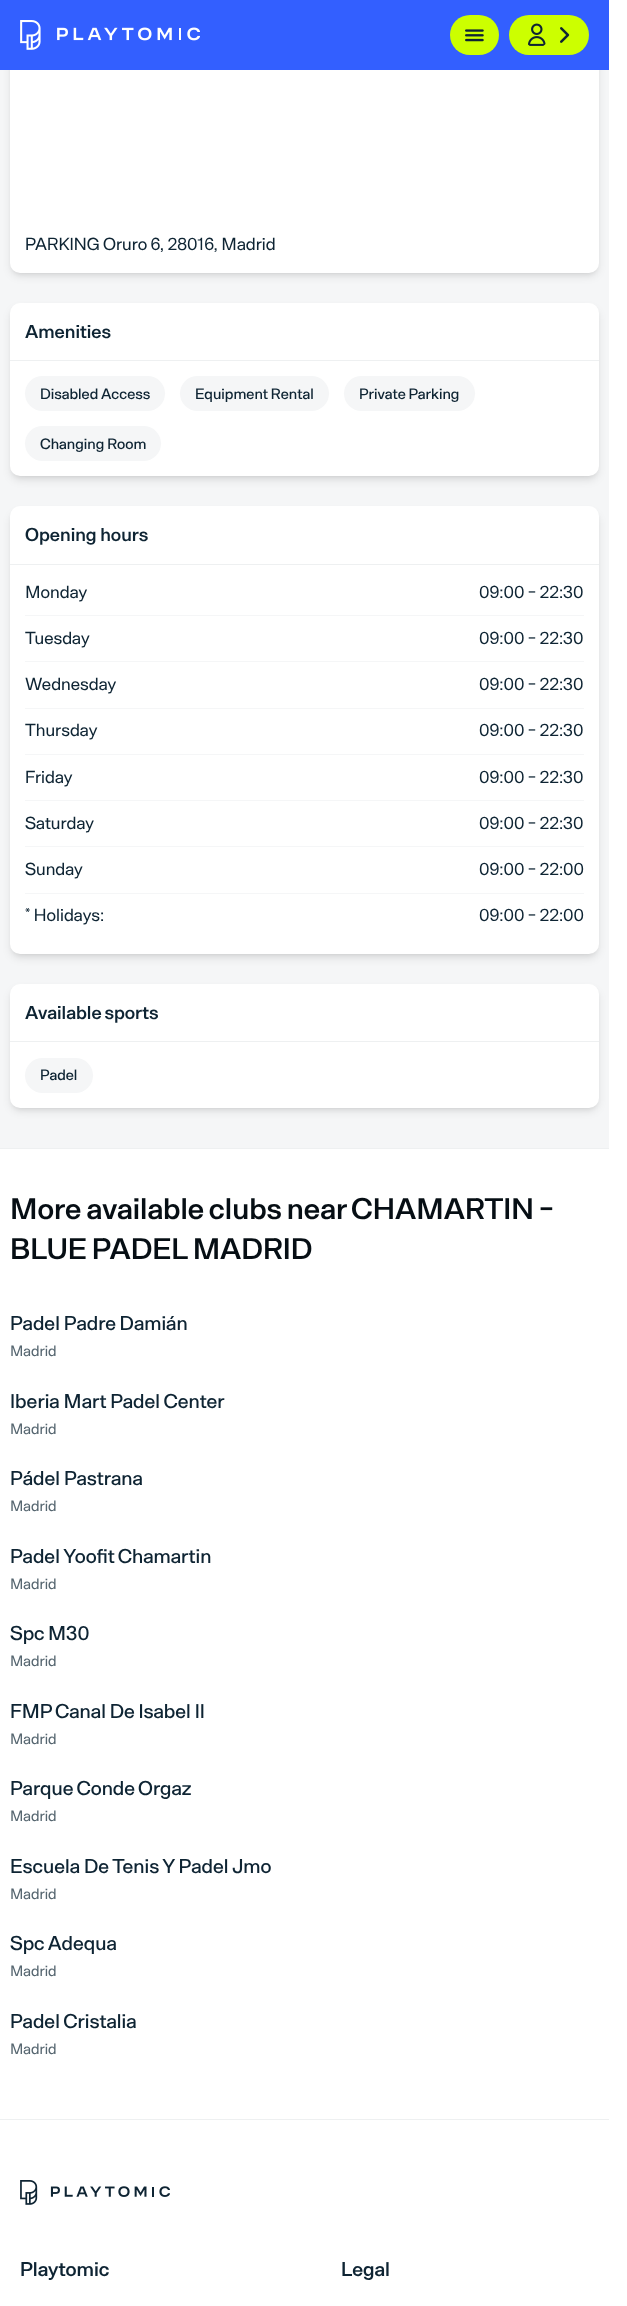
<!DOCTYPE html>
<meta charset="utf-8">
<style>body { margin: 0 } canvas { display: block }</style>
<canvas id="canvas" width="627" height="2306"></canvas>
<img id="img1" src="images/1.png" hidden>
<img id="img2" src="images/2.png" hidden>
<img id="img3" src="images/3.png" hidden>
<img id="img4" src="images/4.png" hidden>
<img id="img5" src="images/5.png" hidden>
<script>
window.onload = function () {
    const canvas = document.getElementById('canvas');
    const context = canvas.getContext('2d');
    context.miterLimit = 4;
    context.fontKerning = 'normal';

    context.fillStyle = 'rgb(255, 255, 255)';
    context.fillRect(0, 0, 627, 2306);
    context.fillStyle = 'rgb(245, 246, 247)';
    context.fillRect(0, 70, 609, 1078);
    context.fillStyle = 'rgba(0, 0, 0, 0.1)';
    context.filter = 'blur(2.5px)';
    context.beginPath();
    context.roundRect(13, -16, 583, 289, 8);
    context.fill();
    context.filter = 'none';
    context.filter = 'blur(4px)';
    context.beginPath();
    context.roundRect(11, -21, 587, 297, 9);
    context.fill();
    context.filter = 'none';
    context.fillStyle = 'rgb(255, 255, 255)';
    context.beginPath();
    context.roundRect(10, -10, 589, 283, 10);
    context.fill();
    context.fillStyle = 'rgb(51, 95, 255)';
    context.fillRect(0, 0, 609, 70);
    context.drawImage(document.getElementById('img1'), 20, 20, 180, 30);
    context.fillStyle = 'rgb(204, 255, 0)';
    context.beginPath();
    context.roundRect(450, 15, 49, 40, 20);
    context.fill();
    context.drawImage(document.getElementById('img2'), 465, 29, 19, 13);
    context.beginPath();
    context.roundRect(509, 15, 80, 40, 20);
    context.fill();
    context.drawImage(document.getElementById('img3'), 528, 23, 18, 23);
    context.drawImage(document.getElementById('img4'), 560, 27, 10, 16);
    context.fillStyle = 'rgba(0, 0, 0, 0.1)';
    context.filter = 'blur(2.5px)';
    context.beginPath();
    context.roundRect(13, 308, 583, 168, 8);
    context.fill();
    context.filter = 'none';
    context.filter = 'blur(4px)';
    context.beginPath();
    context.roundRect(11, 309, 587, 171, 9);
    context.fill();
    context.filter = 'none';
    context.fillStyle = 'rgb(255, 255, 255)';
    context.beginPath();
    context.roundRect(10, 303, 589, 173, 10);
    context.fill();
    context.fillStyle = 'rgb(238, 240, 241)';
    context.fillRect(10, 360, 589, 1);
    context.fillStyle = 'rgb(245, 246, 247)';
    context.beginPath();
    context.roundRect(25, 376, 140, 35, 17.5);
    context.fill();
    context.beginPath();
    context.roundRect(180, 376, 149, 35, 17.5);
    context.fill();
    context.beginPath();
    context.roundRect(344, 376, 131, 35, 17.5);
    context.fill();
    context.beginPath();
    context.roundRect(25, 426, 136, 35, 17.5);
    context.fill();
    context.fillStyle = 'rgba(0, 0, 0, 0.1)';
    context.filter = 'blur(2.5px)';
    context.beginPath();
    context.roundRect(13, 511, 583, 443, 8);
    context.fill();
    context.filter = 'none';
    context.filter = 'blur(4px)';
    context.beginPath();
    context.roundRect(11, 513, 587, 445, 9);
    context.fill();
    context.filter = 'none';
    context.fillStyle = 'rgb(255, 255, 255)';
    context.beginPath();
    context.roundRect(10, 506, 589, 448, 10);
    context.fill();
    context.fillStyle = 'rgb(238, 240, 241)';
    context.fillRect(10, 564, 589, 1);
    context.fillStyle = 'rgb(245, 246, 247)';
    context.fillRect(25, 615, 559, 1);
    context.fillRect(25, 661, 559, 1);
    context.fillRect(25, 708, 559, 1);
    context.fillRect(25, 754, 559, 1);
    context.fillRect(25, 800, 559, 1);
    context.fillRect(25, 846, 559, 1);
    context.fillRect(25, 893, 559, 1);
    context.fillStyle = 'rgba(0, 0, 0, 0.1)';
    context.filter = 'blur(2.5px)';
    context.beginPath();
    context.roundRect(13, 989, 583, 119, 8);
    context.fill();
    context.filter = 'none';
    context.filter = 'blur(4px)';
    context.beginPath();
    context.roundRect(11, 990, 587, 121, 9);
    context.fill();
    context.filter = 'none';
    context.fillStyle = 'rgb(255, 255, 255)';
    context.beginPath();
    context.roundRect(10, 984, 589, 124, 10);
    context.fill();
    context.fillStyle = 'rgb(238, 240, 241)';
    context.fillRect(10, 1041, 589, 1);
    context.fillStyle = 'rgb(245, 246, 247)';
    context.beginPath();
    context.roundRect(25, 1058, 68, 35, 17.5);
    context.fill();
    context.fillStyle = 'rgb(238, 240, 241)';
    context.fillRect(0, 1148, 609, 1);
    context.fillRect(0, 2119, 609, 1);
    context.drawImage(document.getElementById('img5'), 20, 2180, 150, 25);
    context.font = '17.5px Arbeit';
    context.fillStyle = 'rgb(14, 36, 51)';
    context.fillText('PARKING Oruro 6, 28016, Madrid', 25, 250);
    context.font = '600 18.75px Arbeit';
    context.fillText('Amenities', 25, 338);
    context.font = '500 15px Arbeit';
    context.fillText('Disabled Access', 40, 399);
    context.fillText('Equipment Rental', 195, 399);
    context.fillText('Private Parking', 359, 399);
    context.fillText('Changing Room', 40, 449);
    context.font = '600 18.75px Arbeit';
    context.fillText('Opening hours', 25, 541);
    context.font = '17.5px Arbeit';
    context.fillText('Monday', 25, 598);
    context.fillText('09:00 - 22:30', 479, 598);
    context.fillText('Tuesday', 25, 644);
    context.fillText('09:00 - 22:30', 479, 644);
    context.fillText('Wednesday', 25, 690);
    context.fillText('09:00 - 22:30', 479, 690);
    context.fillText('Thursday', 25, 736);
    context.fillText('09:00 - 22:30', 479, 736);
    context.fillText('Friday', 25, 783);
    context.fillText('09:00 - 22:30', 479, 783);
    context.fillText('Saturday', 25, 829);
    context.fillText('09:00 - 22:30', 479, 829);
    context.fillText('Sunday', 25, 875);
    context.fillText('09:00 - 22:00', 479, 875);
    context.fillText('* Holidays:', 25, 921);
    context.fillText('09:00 - 22:00', 479, 921);
    context.font = '600 18.75px Arbeit';
    context.fillText('Available sports', 25, 1019);
    context.font = '500 15px Arbeit';
    context.fillText('Padel', 40, 1080);
    context.font = '600 30px Arbeit';
    context.fillStyle = 'rgb(6, 14, 20)';
    context.fillText('More available clubs near CHAMARTIN -', 10, 1219);
    context.fillText('BLUE PADEL MADRID', 10, 1259);
    context.font = '500 20px Arbeit';
    context.fillStyle = 'rgb(14, 36, 51)';
    context.fillText('Padel Padre Damián', 10, 1330);
    context.font = '15px Arbeit';
    context.fillStyle = 'rgb(86, 102, 112)';
    context.fillText('Madrid', 10, 1356);
    context.font = '500 20px Arbeit';
    context.fillStyle = 'rgb(14, 36, 51)';
    context.fillText('Iberia Mart Padel Center', 10, 1408);
    context.font = '15px Arbeit';
    context.fillStyle = 'rgb(86, 102, 112)';
    context.fillText('Madrid', 10, 1434);
    context.font = '500 20px Arbeit';
    context.fillStyle = 'rgb(14, 36, 51)';
    context.fillText('Pádel Pastrana', 10, 1485);
    context.font = '15px Arbeit';
    context.fillStyle = 'rgb(86, 102, 112)';
    context.fillText('Madrid', 10, 1511);
    context.font = '500 20px Arbeit';
    context.fillStyle = 'rgb(14, 36, 51)';
    context.fillText('Padel Yoofit Chamartin', 10, 1563);
    context.font = '15px Arbeit';
    context.fillStyle = 'rgb(86, 102, 112)';
    context.fillText('Madrid', 10, 1589);
    context.font = '500 20px Arbeit';
    context.fillStyle = 'rgb(14, 36, 51)';
    context.fillText('Spc M30', 10, 1640);
    context.font = '15px Arbeit';
    context.fillStyle = 'rgb(86, 102, 112)';
    context.fillText('Madrid', 10, 1666);
    context.font = '500 20px Arbeit';
    context.fillStyle = 'rgb(14, 36, 51)';
    context.fillText('FMP Canal De Isabel II', 10, 1718);
    context.font = '15px Arbeit';
    context.fillStyle = 'rgb(86, 102, 112)';
    context.fillText('Madrid', 10, 1744);
    context.font = '500 20px Arbeit';
    context.fillStyle = 'rgb(14, 36, 51)';
    context.fillText('Parque Conde Orgaz', 10, 1795);
    context.font = '15px Arbeit';
    context.fillStyle = 'rgb(86, 102, 112)';
    context.fillText('Madrid', 10, 1821);
    context.font = '500 20px Arbeit';
    context.fillStyle = 'rgb(14, 36, 51)';
    context.fillText('Escuela De Tenis Y Padel Jmo', 10, 1873);
    context.font = '15px Arbeit';
    context.fillStyle = 'rgb(86, 102, 112)';
    context.fillText('Madrid', 10, 1899);
    context.font = '500 20px Arbeit';
    context.fillStyle = 'rgb(14, 36, 51)';
    context.fillText('Spc Adequa', 10, 1950);
    context.font = '15px Arbeit';
    context.fillStyle = 'rgb(86, 102, 112)';
    context.fillText('Madrid', 10, 1976);
    context.font = '500 20px Arbeit';
    context.fillStyle = 'rgb(14, 36, 51)';
    context.fillText('Padel Cristalia', 10, 2028);
    context.font = '15px Arbeit';
    context.fillStyle = 'rgb(86, 102, 112)';
    context.fillText('Madrid', 10, 2054);
    context.font = '600 20px Arbeit';
    context.fillStyle = 'rgb(14, 36, 51)';
    context.fillText('Playtomic', 20, 2276);
    context.fillText('Legal', 341, 2276);
};
</script>
